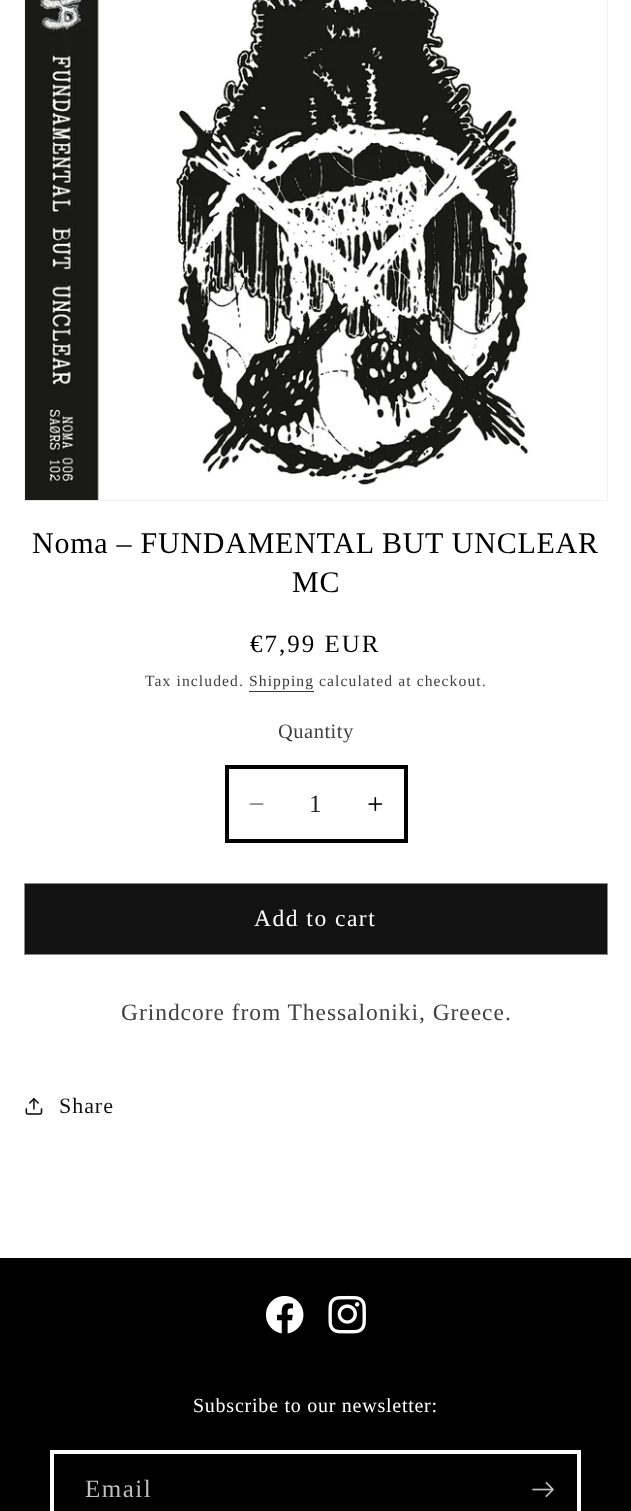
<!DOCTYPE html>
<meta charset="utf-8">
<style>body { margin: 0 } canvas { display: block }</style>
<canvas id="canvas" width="631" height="1511"></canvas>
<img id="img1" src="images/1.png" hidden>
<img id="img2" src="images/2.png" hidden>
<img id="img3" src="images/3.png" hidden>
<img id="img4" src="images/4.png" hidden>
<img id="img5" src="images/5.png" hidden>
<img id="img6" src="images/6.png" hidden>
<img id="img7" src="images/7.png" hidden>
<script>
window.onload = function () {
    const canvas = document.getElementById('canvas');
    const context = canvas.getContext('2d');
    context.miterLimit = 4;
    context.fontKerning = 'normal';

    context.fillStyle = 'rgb(255, 255, 255)';
    context.fillRect(0, 0, 631, 1511);
    context.strokeStyle = 'rgb(242, 242, 242)';
    context.strokeRect(24.5, -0.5, 583, 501);
    context.drawImage(document.getElementById('img1'), 25, 0, 504, 501);
    context.fillStyle = 'rgb(54, 54, 54)';
    context.fillRect(249, 691, 65, 1);
    context.drawImage(document.getElementById('img2'), 249, 803, 15, 2);
    context.drawImage(document.getElementById('img3'), 368, 797, 15, 15);
    context.strokeStyle = 'rgb(0, 0, 0)';
    context.lineWidth = 4;
    context.strokeRect(227, 767, 179, 74);
    context.fillStyle = 'rgb(18, 18, 18)';
    context.fillRect(25, 884, 582, 70);
    context.strokeStyle = 'rgb(137, 137, 137)';
    context.lineWidth = 1;
    context.strokeRect(24.5, 883.5, 583, 71);
    context.drawImage(document.getElementById('img4'), 25, 1098, 18, 17);
    context.fillStyle = 'rgb(0, 0, 0)';
    context.fillRect(0, 1258, 631, 253);
    context.drawImage(document.getElementById('img5'), 265, 1295, 39, 39);
    context.drawImage(document.getElementById('img6'), 328, 1295, 38, 39);
    context.strokeStyle = 'rgb(255, 255, 255)';
    context.lineWidth = 4;
    context.strokeRect(52, 1452, 527, 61);
    context.drawImage(document.getElementById('img7'), 532, 1482, 22, 15);
    context.letterSpacing = '0.75px';
    context.font = '30px Liberation Serif';
    context.fillText('Noma – FUNDAMENTAL BUT UNCLEAR', 32, 553);
    context.fillText('MC', 292, 592);
    context.letterSpacing = '2px';
    context.font = '25px Liberation Serif';
    context.fillText('€7,99 EUR', 250, 652);
    context.letterSpacing = '1.1px';
    context.font = '15.6px Liberation Serif';
    context.fillStyle = 'rgb(64, 64, 64)';
    context.fillText('Tax included.', 145, 686);
    context.fillStyle = 'rgb(54, 54, 54)';
    context.fillText('Shipping', 249, 686);
    context.fillStyle = 'rgb(64, 64, 64)';
    context.fillText('calculated at checkout.', 319, 686);
    context.letterSpacing = '0.5px';
    context.font = '20.5px Liberation Serif';
    context.fillText('Quantity', 278, 738);
    context.letterSpacing = '0px';
    context.font = '25px Liberation Serif';
    context.fillStyle = 'rgb(38, 38, 38)';
    context.fillText('1', 309, 812);
    context.letterSpacing = '1.5px';
    context.font = '23.5px Liberation Serif';
    context.fillStyle = 'rgb(255, 255, 255)';
    context.fillText('Add to cart', 254, 926);
    context.letterSpacing = '0.95px';
    context.fillStyle = 'rgb(64, 64, 64)';
    context.fillText('Grindcore from Thessaloniki, Greece.', 121, 1020);
    context.font = '22px Liberation Serif';
    context.fillStyle = 'rgb(18, 18, 18)';
    context.fillText('Share', 59, 1113);
    context.letterSpacing = '0.75px';
    context.font = '20px Liberation Serif';
    context.fillStyle = 'rgb(255, 255, 255)';
    context.fillText('Subscribe to our newsletter:', 193, 1412);
    context.letterSpacing = '1.5px';
    context.font = '25px Liberation Serif';
    context.fillStyle = 'rgb(191, 191, 191)';
    context.fillText('Email', 85, 1497);
};
</script>
